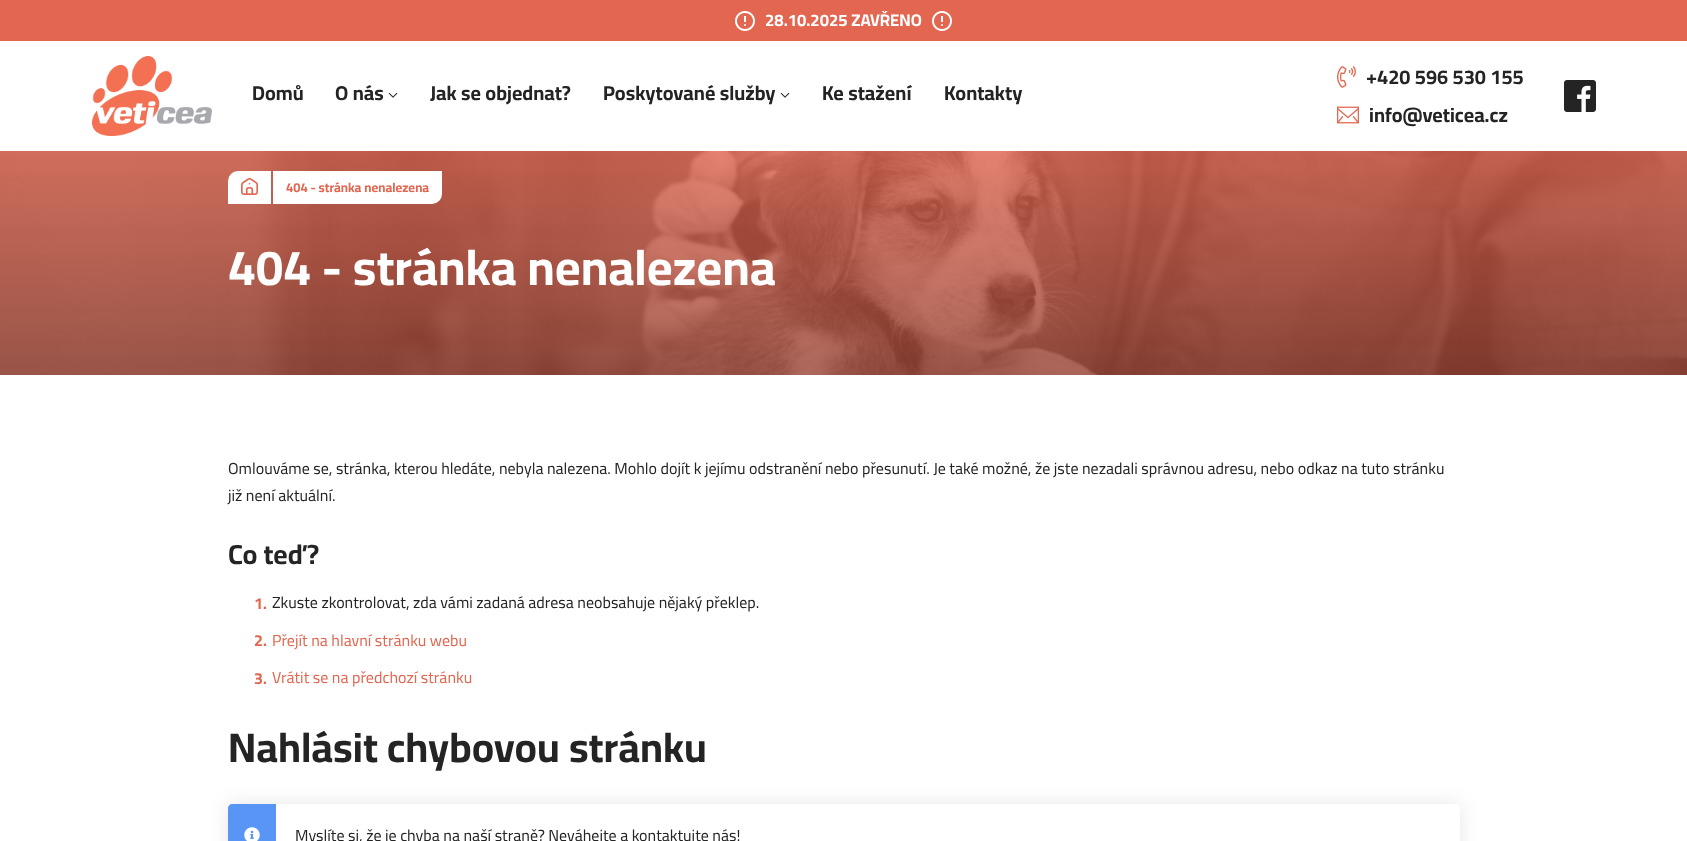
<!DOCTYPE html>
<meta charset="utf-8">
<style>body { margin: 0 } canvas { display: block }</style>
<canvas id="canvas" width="1687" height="841"></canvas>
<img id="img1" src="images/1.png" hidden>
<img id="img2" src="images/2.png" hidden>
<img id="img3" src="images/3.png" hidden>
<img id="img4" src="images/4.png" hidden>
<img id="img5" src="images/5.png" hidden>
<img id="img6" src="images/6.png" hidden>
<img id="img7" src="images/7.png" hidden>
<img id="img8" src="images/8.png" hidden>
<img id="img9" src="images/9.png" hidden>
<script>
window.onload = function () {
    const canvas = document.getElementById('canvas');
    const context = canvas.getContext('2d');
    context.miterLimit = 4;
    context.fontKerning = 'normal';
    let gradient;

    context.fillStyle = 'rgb(255, 255, 255)';
    context.fillRect(0, 0, 1687, 841);
    context.fillStyle = 'rgb(226, 102, 80)';
    context.fillRect(0, 0, 1687, 41);
    context.drawImage(document.getElementById('img1'), 735, 11, 20, 20);
    context.drawImage(document.getElementById('img1'), 932, 11, 20, 20);
    context.drawImage(document.getElementById('img2'), 92, 56, 120, 80);
    context.drawImage(document.getElementById('img3'), 388, 92, 10, 6);
    context.drawImage(document.getElementById('img3'), 780, 92, 10, 6);
    context.drawImage(document.getElementById('img4'), 1337, 66, 19, 22);
    context.drawImage(document.getElementById('img5'), 1337, 106, 22, 18);
    context.drawImage(document.getElementById('img6'), 1564, 80, 32, 32);
    gradient = context.createLinearGradient(844, 151, 844, 375);
    gradient.addColorStop(0, 'rgb(225, 102, 80)');
    gradient.addColorStop(1, 'rgb(157, 72, 56)');
    context.fillStyle = gradient;
    context.fillRect(0, 151, 1687, 224);
    context.drawImage(document.getElementById('img7'), 0, 151, 1687, 224);
    context.fillStyle = 'rgb(255, 255, 255)';
    context.beginPath();
    context.roundRect(228, 171, 43, 33, [10, 0, 0, 0]);
    context.fill();
    context.drawImage(document.getElementById('img8'), 241, 178, 17, 17);
    context.beginPath();
    context.roundRect(273, 171, 169, 33, [0, 0, 10, 0]);
    context.fill();
    context.fillStyle = 'rgba(0, 0, 0, 0.1)';
    context.filter = 'blur(10px)';
    context.beginPath();
    context.roundRect(228, 804, 1232, 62, 4);
    context.fill();
    context.filter = 'none';
    context.fillStyle = 'rgb(255, 255, 255)';
    context.beginPath();
    context.roundRect(228, 804, 1232, 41, 4);
    context.fill();
    context.fillStyle = 'rgb(88, 149, 245)';
    context.beginPath();
    context.moveTo(232, 804);
    context.lineTo(276, 804);
    context.lineTo(276, 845);
    context.lineTo(232, 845);
    context.bezierCurveTo(230, 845, 228, 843, 228, 841);
    context.lineTo(228, 808);
    context.bezierCurveTo(228, 806, 230, 804, 232, 804);
    context.closePath();
    context.fill();
    context.drawImage(document.getElementById('img9'), 244, 827, 16, 14);
    context.font = 'bold 16.75px Cairo';
    context.fillStyle = 'rgb(255, 255, 255)';
    context.fillText('28.10.2025 ZAVŘENO', 765, 26);
    context.font = 'bold 20px Cairo';
    context.fillStyle = 'rgb(36, 36, 36)';
    context.fillText('Domů', 252, 100);
    context.fillText('O nás', 335, 100);
    context.fillText('Jak se objednat?', 430, 100);
    context.fillText('Poskytované služby', 603, 100);
    context.fillText('Ke stažení', 822, 100);
    context.fillText('Kontakty', 944, 100);
    context.fillText('+420 596 530 155', 1366, 84);
    context.fillText('info@veticea.cz', 1369, 122);
    context.font = 'bold 13px Cairo';
    context.fillStyle = 'rgb(226, 102, 80)';
    context.fillText('404 - stránka nenalezena', 286, 192);
    context.font = 'bold 49.75px Cairo';
    context.fillStyle = 'rgb(255, 255, 255)';
    context.fillText('404 - stránka nenalezena', 228, 285);
    context.font = '16px Cairo';
    context.fillStyle = 'rgb(36, 36, 36)';
    context.fillText('Omlouváme se, stránka, kterou hledáte, nebyla nalezena. Mohlo dojít k jejímu odstranění nebo přesunutí. Je také možné, že jste nezadali správnou adresu, nebo odkaz na tuto stránku', 228, 474);
    context.fillText('již není aktuální.', 228, 501);
    context.font = 'bold 27.5px Cairo';
    context.fillText('Co teď?', 228, 564);
    context.font = 'bold 16px Cairo';
    context.fillStyle = 'rgb(226, 102, 80)';
    context.fillText('1.', 254, 609);
    context.font = '16px Cairo';
    context.fillStyle = 'rgb(36, 36, 36)';
    context.fillText('Zkuste zkontrolovat, zda vámi zadaná adresa neobsahuje nějaký překlep.', 272, 608);
    context.font = 'bold 16px Cairo';
    context.fillStyle = 'rgb(226, 102, 80)';
    context.fillText('2.', 254, 646);
    context.font = '16px Cairo';
    context.fillText('Přejít na hlavní stránku webu', 272, 646);
    context.font = 'bold 16px Cairo';
    context.fillText('3.', 254, 684);
    context.font = '16px Cairo';
    context.fillText('Vrátit se na předchozí stránku', 272, 683);
    context.font = 'bold 41.5px Cairo';
    context.fillStyle = 'rgb(36, 36, 36)';
    context.fillText('Nahlásit chybovou stránku', 228, 762);
    context.font = '16px Cairo';
    context.fillText('Myslíte si, že je chyba na naší straně? Neváhejte a kontaktujte nás!', 295, 841);
};
</script>
